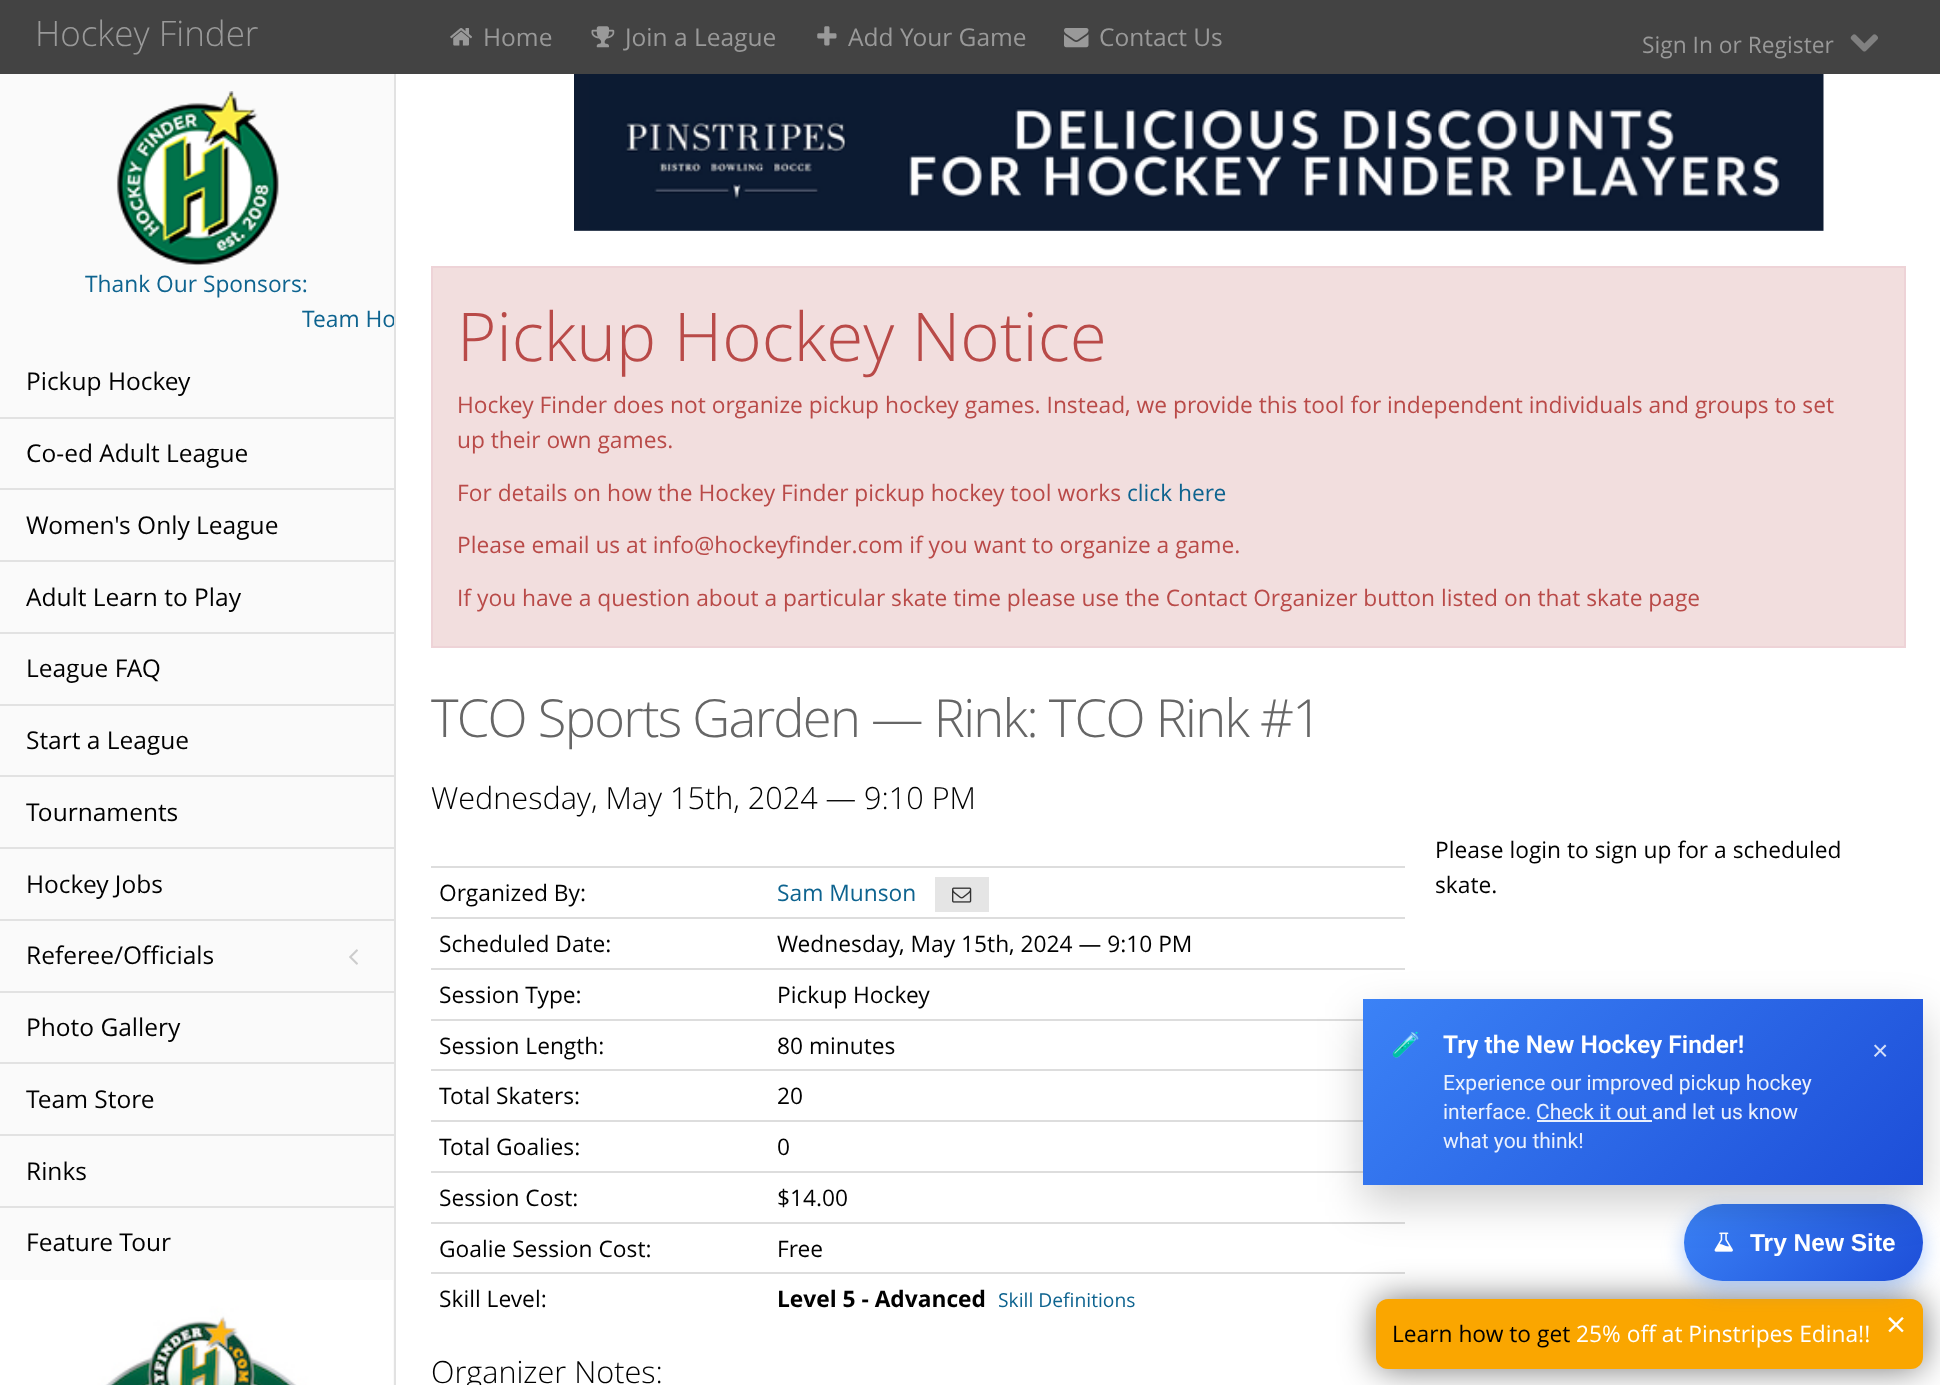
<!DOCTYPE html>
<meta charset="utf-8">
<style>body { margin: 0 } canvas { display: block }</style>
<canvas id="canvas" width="1940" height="1385"></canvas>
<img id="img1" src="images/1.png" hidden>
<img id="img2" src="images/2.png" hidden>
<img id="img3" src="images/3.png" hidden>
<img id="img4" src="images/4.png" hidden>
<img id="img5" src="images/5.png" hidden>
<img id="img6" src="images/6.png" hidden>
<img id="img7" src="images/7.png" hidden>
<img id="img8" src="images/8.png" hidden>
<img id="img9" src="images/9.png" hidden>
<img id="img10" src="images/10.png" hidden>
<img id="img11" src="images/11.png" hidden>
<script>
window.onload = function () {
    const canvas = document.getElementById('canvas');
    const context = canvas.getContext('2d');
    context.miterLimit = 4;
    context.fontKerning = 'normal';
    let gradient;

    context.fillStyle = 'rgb(250, 250, 250)';
    context.fillRect(0, 0, 1940, 1385);
    context.fillStyle = 'rgb(67, 67, 67)';
    context.fillRect(0, 0, 1940, 74);
    context.drawImage(document.getElementById('img1'), 450, 28, 22, 18);
    context.drawImage(document.getElementById('img2'), 591, 26, 24, 22);
    context.drawImage(document.getElementById('img3'), 817, 26, 20, 20);
    context.drawImage(document.getElementById('img4'), 1064, 28, 25, 20);
    context.drawImage(document.getElementById('img5'), 1850, 34, 28, 18);
    context.drawImage(document.getElementById('img6'), 116, 91, 163, 175);
    context.fillStyle = 'rgb(226, 226, 226)';
    context.fillRect(0, 417, 394, 2);
    context.fillRect(0, 488, 394, 2);
    context.fillRect(0, 560, 394, 2);
    context.fillRect(0, 632, 394, 2);
    context.fillRect(0, 704, 394, 2);
    context.fillRect(0, 775, 394, 2);
    context.fillRect(0, 847, 394, 2);
    context.fillRect(0, 919, 394, 2);
    context.drawImage(document.getElementById('img7'), 349, 949, 9, 16);
    context.fillRect(0, 991, 394, 2);
    context.fillRect(0, 1062, 394, 2);
    context.fillRect(0, 1134, 394, 2);
    context.fillRect(0, 1206, 394, 2);
    context.drawImage(document.getElementById('img8'), 0, 1280, 393, 105);
    context.fillStyle = 'rgb(255, 255, 255)';
    context.fillRect(396, 74, 1544, 1311);
    context.fillStyle = 'rgb(226, 226, 226)';
    context.fillRect(394, 74, 2, 1311);
    context.drawImage(document.getElementById('img9'), 574, 74, 1250, 157);
    context.fillStyle = 'rgb(242, 222, 222)';
    context.beginPath();
    context.rect(432, 267, 1473, 380);
    context.fill();
    context.strokeStyle = 'rgb(238, 211, 215)';
    context.lineWidth = 2;
    context.stroke();
    context.fillStyle = 'rgb(221, 221, 221)';
    context.fillRect(431, 866, 974, 2);
    context.fillStyle = 'rgb(229, 229, 229)';
    context.fillRect(935, 877, 54, 35);
    context.drawImage(document.getElementById('img10'), 952, 887, 20, 16);
    context.fillStyle = 'rgb(221, 221, 221)';
    context.fillRect(431, 917, 974, 2);
    context.fillRect(431, 968, 974, 2);
    context.fillRect(431, 1019, 932, 2);
    context.fillRect(431, 1069, 932, 2);
    context.fillRect(431, 1120, 932, 2);
    context.fillRect(431, 1171, 932, 2);
    context.fillRect(431, 1222, 974, 2);
    context.fillRect(431, 1272, 974, 2);
    context.fillStyle = 'rgba(0, 0, 0, 0.54)';
    context.filter = 'blur(17.5px)';
    context.beginPath();
    context.roundRect(1376, 1299, 547, 70, 12);
    context.fill();
    context.filter = 'none';
    context.fillStyle = 'rgb(250, 166, 0)';
    context.beginPath();
    context.roundRect(1376, 1299, 547, 70, 12);
    context.fill();
    context.fillStyle = 'rgba(59, 130, 246, 0.4)';
    context.filter = 'blur(10.5px)';
    context.beginPath();
    context.roundRect(1684, 1211, 239, 77, 38.5);
    context.fill();
    context.filter = 'none';
    gradient = context.createLinearGradient(1724, 1163, 1883, 1322);
    gradient.addColorStop(0, 'rgb(59, 130, 246)');
    gradient.addColorStop(1, 'rgb(29, 78, 216)');
    context.fillStyle = gradient;
    context.beginPath();
    context.roundRect(1684, 1204, 239, 77, 38.5);
    context.fill();
    context.drawImage(document.getElementById('img11'), 1714, 1232, 19, 20);
    context.fillStyle = 'rgba(0, 0, 0, 0.2)';
    context.filter = 'blur(22px)';
    context.beginPath();
    context.rect(1363, 1017, 560, 185);
    context.fill();
    context.filter = 'none';
    gradient = context.createLinearGradient(1457, 906, 1830, 1278);
    gradient.addColorStop(0, 'rgb(59, 130, 246)');
    gradient.addColorStop(1, 'rgb(29, 78, 216)');
    context.fillStyle = gradient;
    context.fillRect(1363, 999, 560, 186);
    gradient = context.createLinearGradient(1457, 906, 1830, 1278);
    gradient.addColorStop(0, 'rgb(235, 243, 254)');
    gradient.addColorStop(1, 'rgb(232, 237, 251)');
    context.fillStyle = gradient;
    context.fillRect(1537, 1120, 115, 2);
    context.font = '300 35px Open Sans';
    context.fillStyle = 'rgb(153, 153, 153)';
    context.fillText('Hockey Finder', 35, 46);
    context.font = '24.5px Open Sans';
    context.fillText('Home', 483, 46);
    context.fillText('Join a League', 625, 46);
    context.fillText('Add Your Game', 848, 46);
    context.fillText('Contact Us', 1099, 46);
    context.font = '22.75px Open Sans';
    context.fillText('Sign In or Register', 1642, 53);
    context.fillStyle = 'rgb(13, 99, 143)';
    context.fillText('Thank Our Sponsors:', 85, 292);
    context.save();
    context.beginPath();
    context.rect(0, 301, 394, 35);
    context.clip();
    context.fillText('Team Ho', 302, 327);
    context.restore();
    context.font = '24.5px Open Sans';
    context.fillStyle = 'rgb(0, 0, 0)';
    context.fillText('Pickup Hockey', 26, 390);
    context.fillText('Co-ed Adult League', 26, 462);
    context.fillText('Women\'s Only League', 26, 534);
    context.fillText('Adult Learn to Play', 26, 606);
    context.fillText('League FAQ', 26, 677);
    context.fillText('Start a League', 26, 749);
    context.fillText('Tournaments', 26, 821);
    context.fillText('Hockey Jobs', 26, 893);
    context.fillText('Referee/Officials', 26, 964);
    context.fillText('Photo Gallery', 26, 1036);
    context.fillText('Team Store', 26, 1108);
    context.fillText('Rinks', 26, 1180);
    context.fillText('Feature Tour', 26, 1251);
    context.font = '300 67.4px Open Sans';
    context.fillStyle = 'rgb(185, 74, 72)';
    context.fillText('Pickup Hockey Notice', 457, 361);
    context.font = '22.75px Open Sans';
    context.fillText('Hockey Finder does not organize pickup hockey games. Instead, we provide this tool for independent individuals and groups to set', 457, 413);
    context.fillText('up their own games.', 457, 448);
    context.fillText('For details on how the Hockey Finder pickup hockey tool works', 457, 501);
    context.fillStyle = 'rgb(13, 99, 143)';
    context.fillText('click here', 1127, 501);
    context.fillStyle = 'rgb(185, 74, 72)';
    context.fillText('Please email us at info@hockeyfinder.com if you want to organize a game.', 457, 553);
    context.fillText('If you have a question about a particular skate time please use the Contact Organizer button listed on that skate page', 457, 606);
    context.letterSpacing = '-1.75px';
    context.font = '300 52.5px Open Sans';
    context.fillStyle = 'rgb(102, 102, 102)';
    context.fillText('TCO Sports Garden — Rink: TCO Rink #1', 431, 737);
    context.letterSpacing = '0px';
    context.font = '300 30.6px Open Sans';
    context.fillStyle = 'rgb(0, 0, 0)';
    context.fillText('Wednesday, May 15th, 2024 — 9:10 PM', 431, 809);
    context.font = '22.75px Open Sans';
    context.fillText('Please login to sign up for a scheduled', 1435, 858);
    context.fillText('skate.', 1435, 893);
    context.fillText('Organized By:', 439, 901);
    context.fillStyle = 'rgb(13, 99, 143)';
    context.fillText('Sam Munson', 777, 901);
    context.fillStyle = 'rgb(0, 0, 0)';
    context.fillText('Scheduled Date:', 439, 952);
    context.fillText('Wednesday, May 15th, 2024 — 9:10 PM', 777, 952);
    context.fillText('Session Type:', 439, 1003);
    context.fillText('Pickup Hockey', 777, 1003);
    context.fillText('Session Length:', 439, 1054);
    context.fillText('80 minutes', 777, 1054);
    context.fillText('Total Skaters:', 439, 1104);
    context.fillText('20', 777, 1104);
    context.fillText('Total Goalies:', 439, 1155);
    context.fillText('0', 777, 1155);
    context.fillText('Session Cost:', 439, 1206);
    context.fillText('$14.00', 777, 1206);
    context.fillText('Goalie Session Cost:', 439, 1257);
    context.fillText('Free', 777, 1257);
    context.fillText('Skill Level:', 439, 1307);
    context.font = 'bold 22.75px Open Sans';
    context.fillText('Level 5 - Advanced', 777, 1307);
    context.font = '19.25px Open Sans';
    context.fillStyle = 'rgb(13, 99, 143)';
    context.fillText('Skill Definitions', 998, 1307);
    context.font = '24.5px Noto Color Emoji';
    context.fillStyle = 'rgb(255, 255, 255)';
    context.fillText('🧪', 1391, 1053);
    context.font = '600 24.5px Roboto';
    context.fillText('Try the New Hockey Finder!', 1443, 1053);
    context.font = '21px Roboto';
    context.fillStyle = 'rgb(234, 240, 253)';
    context.fillText('Experience our improved pickup hockey', 1443, 1090);
    context.fillText('interface.', 1443, 1119);
    context.fillText('Check it out', 1536, 1119);
    context.fillText('and let us know', 1652, 1119);
    context.fillText('what you think!', 1443, 1148);
    context.font = '28px Liberation Sans';
    context.fillStyle = 'rgb(211, 222, 249)';
    context.fillText('×', 1872, 1060);
    context.font = 'bold 24.5px Liberation Sans';
    context.fillStyle = 'rgb(255, 255, 255)';
    context.fillText('Try New Site', 1750, 1251);
    context.font = '300 30.6px Open Sans';
    context.fillStyle = 'rgb(0, 0, 0)';
    context.fillText('Organizer Notes:', 431, 1383);
    context.font = '22.75px Open Sans';
    context.fillText('Learn how to get', 1392, 1342);
    context.fillStyle = 'rgb(255, 255, 255)';
    context.fillText('25% off at Pinstripes Edina!!', 1576, 1342);
    context.font = '35px Open Sans';
    context.fillText('×', 1886, 1337);
};
</script>
